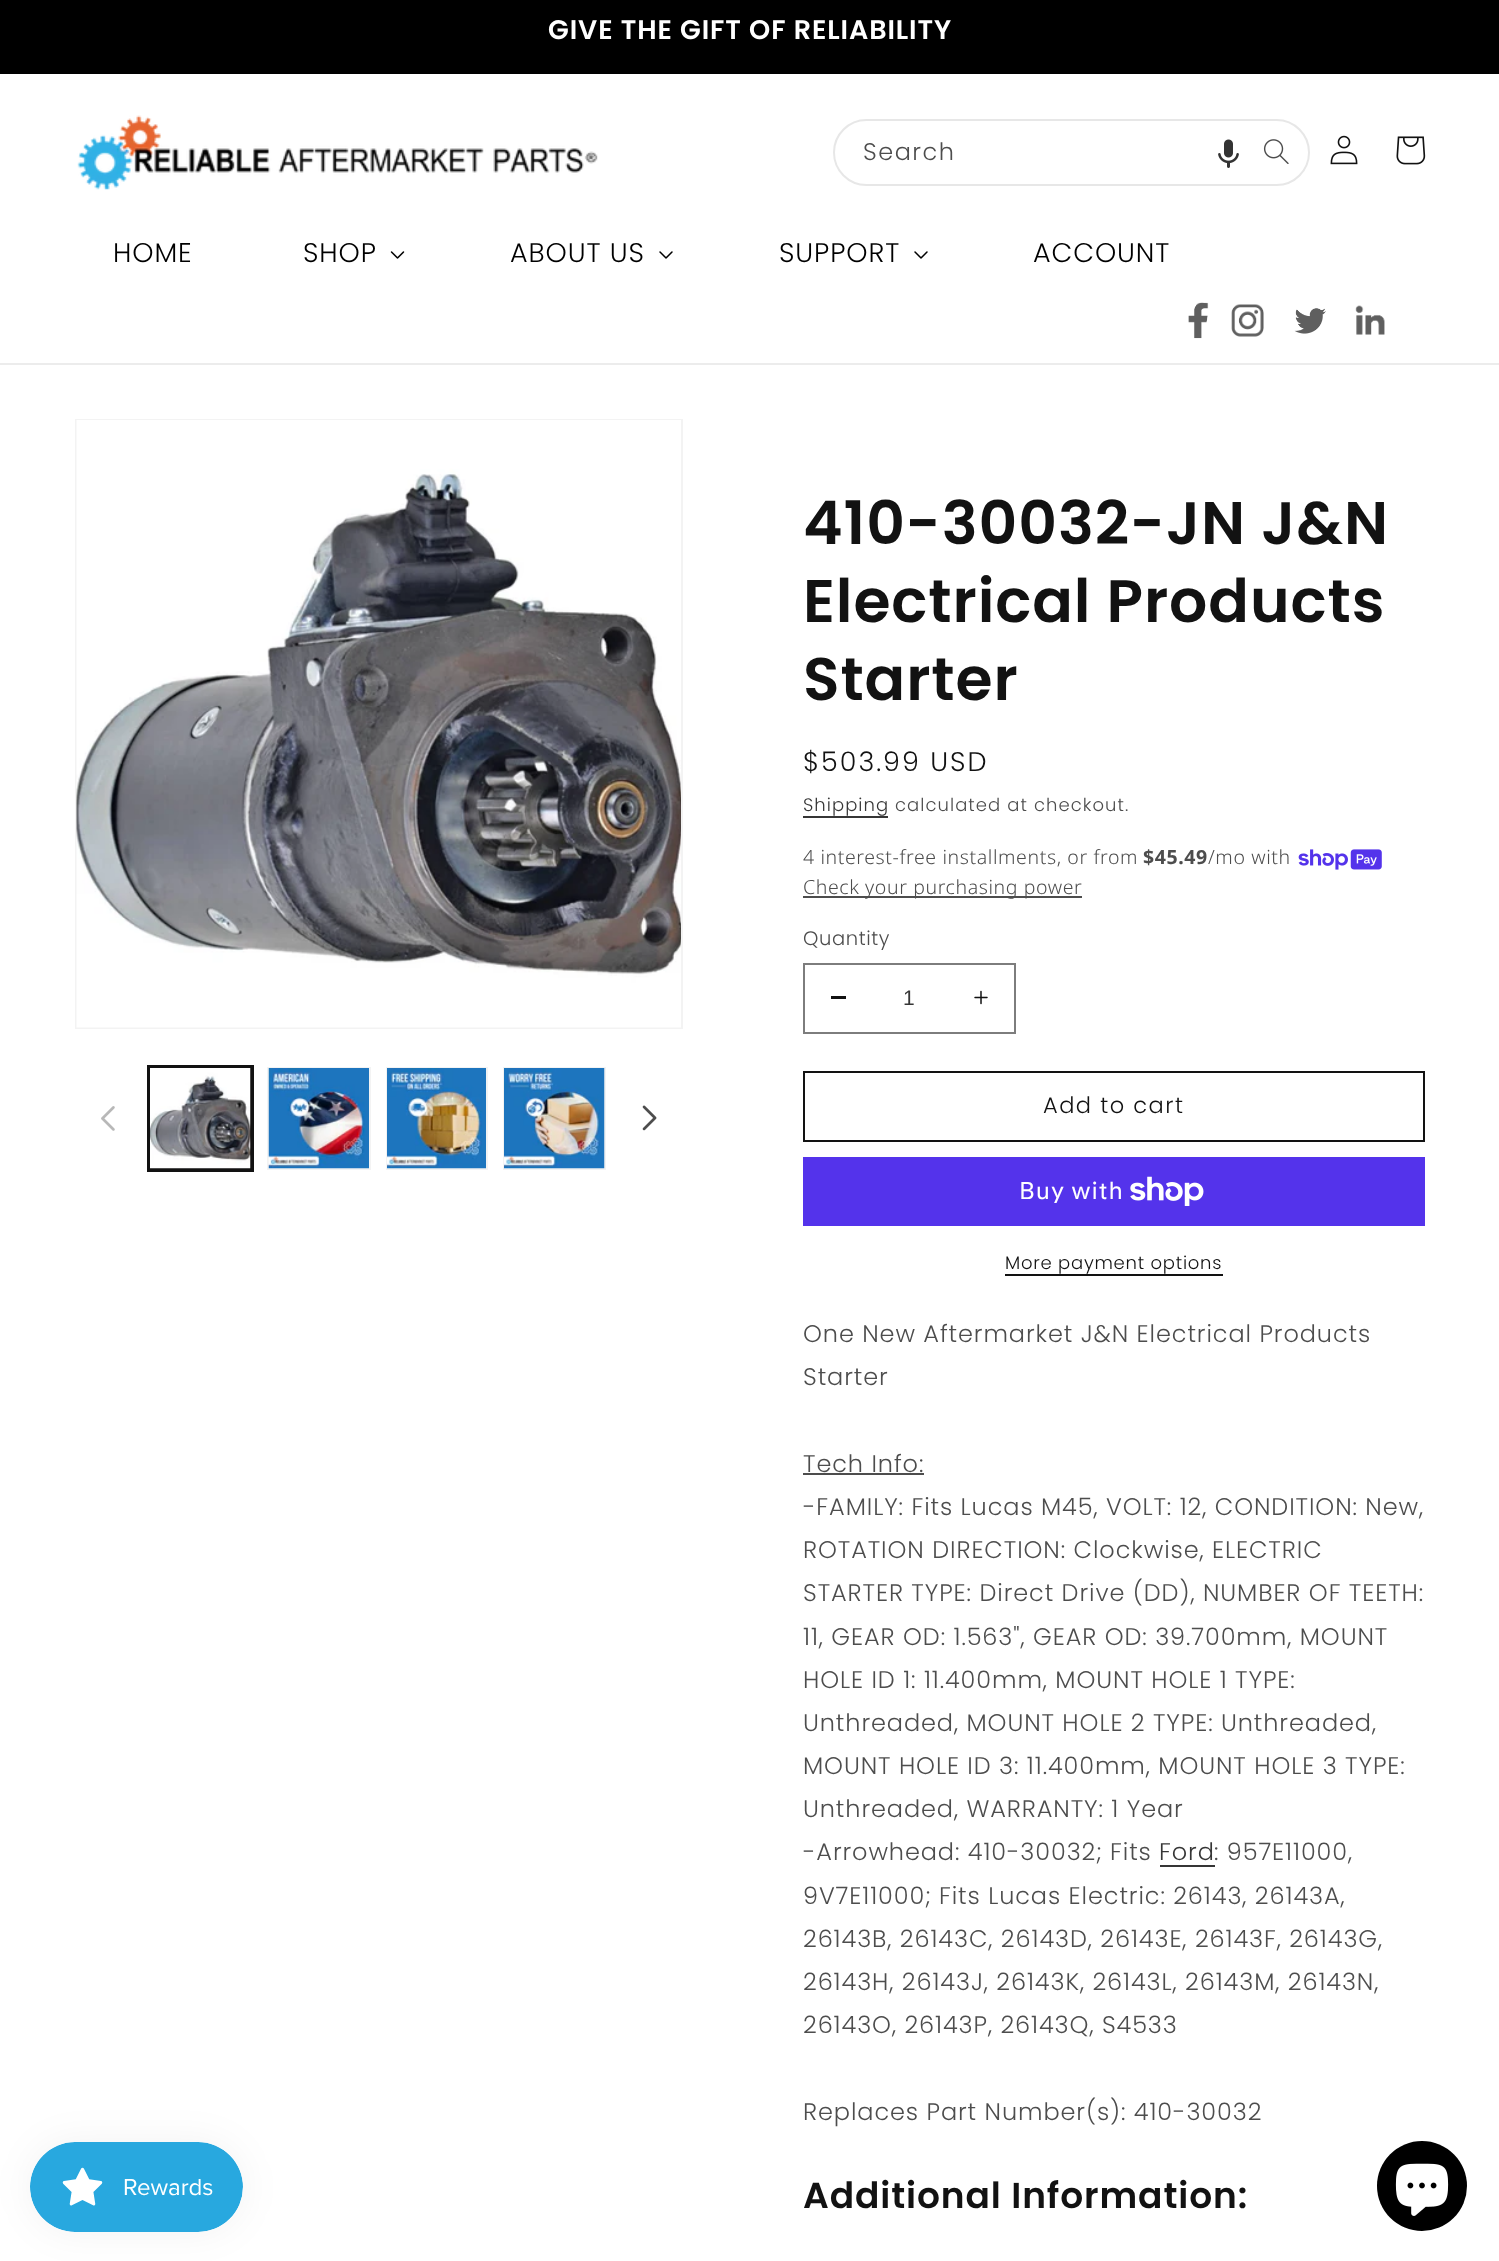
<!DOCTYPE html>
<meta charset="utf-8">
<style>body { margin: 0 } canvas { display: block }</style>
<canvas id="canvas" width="1499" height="2261"></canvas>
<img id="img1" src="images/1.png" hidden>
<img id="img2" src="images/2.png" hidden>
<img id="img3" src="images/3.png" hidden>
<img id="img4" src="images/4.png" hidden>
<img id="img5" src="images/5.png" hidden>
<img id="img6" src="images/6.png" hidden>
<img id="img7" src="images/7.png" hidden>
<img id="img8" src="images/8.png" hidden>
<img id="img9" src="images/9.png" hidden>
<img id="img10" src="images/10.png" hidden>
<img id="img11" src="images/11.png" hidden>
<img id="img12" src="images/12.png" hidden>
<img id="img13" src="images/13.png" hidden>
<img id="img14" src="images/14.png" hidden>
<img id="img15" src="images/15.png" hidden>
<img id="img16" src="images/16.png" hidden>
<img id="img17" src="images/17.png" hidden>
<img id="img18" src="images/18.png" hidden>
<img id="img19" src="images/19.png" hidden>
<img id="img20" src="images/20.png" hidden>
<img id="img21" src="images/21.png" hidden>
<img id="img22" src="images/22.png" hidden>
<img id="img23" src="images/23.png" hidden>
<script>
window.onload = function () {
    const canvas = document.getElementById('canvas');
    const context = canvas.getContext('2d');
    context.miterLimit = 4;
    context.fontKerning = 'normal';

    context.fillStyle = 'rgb(255, 255, 255)';
    context.fillRect(0, 0, 1499, 2261);
    context.fillStyle = 'rgb(0, 0, 0)';
    context.fillRect(0, 0, 1499, 74);
    context.fillStyle = 'rgb(236, 236, 236)';
    context.fillRect(0, 363, 1499, 2);
    context.drawImage(document.getElementById('img1'), 77, 115, 521, 75);
    context.beginPath();
    context.roundRect(834, 120, 475, 65, 32.5);
    context.strokeStyle = 'rgb(231, 231, 231)';
    context.lineWidth = 2;
    context.stroke();
    context.drawImage(document.getElementById('img2'), 1218, 139, 21, 29);
    context.drawImage(document.getElementById('img3'), 1263, 139, 26, 25);
    context.drawImage(document.getElementById('img4'), 1330, 135, 28, 30);
    context.drawImage(document.getElementById('img5'), 1396, 136, 30, 29);
    context.drawImage(document.getElementById('img6'), 390, 251, 15, 8);
    context.drawImage(document.getElementById('img7'), 659, 251, 14, 8);
    context.drawImage(document.getElementById('img7'), 914, 251, 14, 8);
    context.drawImage(document.getElementById('img8'), 1188, 302, 21, 37);
    context.drawImage(document.getElementById('img9'), 1231, 304, 33, 33);
    context.drawImage(document.getElementById('img10'), 1294, 308, 32, 26);
    context.drawImage(document.getElementById('img11'), 1355, 305, 30, 30);
    context.fillStyle = 'rgba(0, 0, 0, 0.05)';
    context.filter = 'blur(19px)';
    context.beginPath();
    context.roundRect(30, 2142, 213, 90, 45);
    context.fill();
    context.filter = 'none';
    context.drawImage(document.getElementById('img12'), 30, 2142, 213, 90);
    context.strokeStyle = 'rgb(243, 243, 243)';
    context.strokeRect(76, 420, 606, 608);
    context.drawImage(document.getElementById('img13'), 76, 420, 605, 608);
    context.drawImage(document.getElementById('img14'), 101, 1106, 14, 25);
    context.strokeStyle = 'rgb(18, 18, 18)';
    context.strokeRect(148, 1066, 105, 105);
    context.strokeRect(150, 1068, 101, 101);
    context.drawImage(document.getElementById('img15'), 150, 1068, 101, 101);
    context.strokeStyle = 'rgb(243, 243, 243)';
    context.strokeRect(268, 1068, 102, 101);
    context.drawImage(document.getElementById('img16'), 268, 1068, 101, 101);
    context.strokeRect(387, 1068, 100, 101);
    context.drawImage(document.getElementById('img17'), 387, 1068, 99, 101);
    context.strokeRect(504, 1068, 101, 101);
    context.drawImage(document.getElementById('img18'), 504, 1068, 101, 101);
    context.drawImage(document.getElementById('img19'), 642, 1105, 15, 26);
    context.fillStyle = 'rgb(54, 54, 54)';
    context.fillRect(803, 816, 85, 2);
    context.drawImage(document.getElementById('img20'), 1298, 849, 84, 21);
    context.fillStyle = 'rgb(77, 77, 77)';
    context.fillRect(803, 896, 279, 2);
    context.fillStyle = 'rgb(18, 18, 18)';
    context.fillRect(831, 996, 15, 3);
    context.drawImage(document.getElementById('img21'), 974, 990, 14, 15);
    context.strokeStyle = 'rgb(125, 125, 125)';
    context.strokeRect(804, 964, 211, 69);
    context.strokeStyle = 'rgb(18, 18, 18)';
    context.strokeRect(804, 1072, 620, 69);
    context.fillStyle = 'rgb(84, 51, 235)';
    context.fillRect(803, 1157, 622, 69);
    context.drawImage(document.getElementById('img22'), 1130, 1176, 74, 30);
    context.fillStyle = 'rgb(18, 18, 18)';
    context.fillRect(1005, 1274, 218, 2);
    context.fillStyle = 'rgb(77, 77, 77)';
    context.fillRect(803, 1473, 121, 2);
    context.fillStyle = 'rgb(54, 54, 54)';
    context.fillRect(1160, 1865, 55, 2);
    context.fillStyle = 'rgb(0, 0, 0)';
    context.beginPath();
    context.arc(1422, 2186, 45, 0, 2 * Math.PI);
    context.fill();
    context.drawImage(document.getElementById('img23'), 1395, 2163, 54, 53);
    context.letterSpacing = '0.9px';
    context.font = '600 27px Poppins';
    context.fillStyle = 'rgb(255, 255, 255)';
    context.fillText('GIVE THE GIFT OF RELIABILITY', 548, 39);
    context.letterSpacing = '1.5px';
    context.font = '300 24px Poppins';
    context.fillStyle = 'rgb(77, 77, 77)';
    context.fillText('Search', 863, 160);
    context.letterSpacing = '0.9px';
    context.font = '300 27px Poppins';
    context.fillStyle = 'rgb(0, 0, 0)';
    context.fillText('HOME', 113, 262);
    context.fillText('SHOP', 303, 262);
    context.fillText('ABOUT US', 510, 262);
    context.fillText('SUPPORT', 779, 262);
    context.fillText('ACCOUNT', 1033, 262);
    context.font = '600 60px Poppins';
    context.fillStyle = 'rgb(18, 18, 18)';
    context.fillText('410-30032-JN J&N', 803, 544);
    context.fillText('Electrical Products', 803, 622);
    context.fillText('Starter', 803, 700);
    context.letterSpacing = '2px';
    context.font = '300 27px Poppins';
    context.fillText('$503.99 USD', 803, 771);
    context.letterSpacing = '1.05px';
    context.font = '300 18px Poppins';
    context.fillStyle = 'rgb(54, 54, 54)';
    context.fillText('Shipping', 803, 811);
    context.fillStyle = 'rgb(77, 77, 77)';
    context.fillText('calculated at checkout.', 895, 811);
    context.letterSpacing = '0.6px';
    context.font = '300 19.5px Noto Sans';
    context.fillText('4 interest-free installments, or from', 803, 864);
    context.font = 'bold 19.5px Noto Sans';
    context.fillText('$45.49', 1143, 864);
    context.font = '300 19.5px Noto Sans';
    context.fillText('/mo with', 1208, 864);
    context.fillText('Check your purchasing power', 803, 894);
    context.font = '300 19.5px Poppins';
    context.fillText('Quantity', 803, 945);
    context.letterSpacing = '0px';
    context.font = '21px Liberation Sans';
    context.fillStyle = 'rgb(54, 54, 54)';
    context.fillText('1', 903, 1005);
    context.letterSpacing = '1.5px';
    context.font = '300 22.5px Poppins';
    context.fillStyle = 'rgb(18, 18, 18)';
    context.fillText('Add to cart', 1043, 1113);
    context.letterSpacing = '0.9px';
    context.font = '24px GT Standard';
    context.fillStyle = 'rgb(255, 255, 255)';
    context.fillText('Buy with', 1019, 1199);
    context.letterSpacing = '0.75px';
    context.font = '300 18px Poppins';
    context.fillStyle = 'rgb(18, 18, 18)';
    context.fillText('More payment options', 1005, 1269);
    context.letterSpacing = '0.9px';
    context.font = '300 24px Poppins';
    context.fillStyle = 'rgb(77, 77, 77)';
    context.fillText('One New Aftermarket J&N Electrical Products', 803, 1342);
    context.fillText('Starter', 803, 1385);
    context.fillText('Tech Info:', 803, 1472);
    context.fillText('-FAMILY: Fits Lucas M45, VOLT: 12, CONDITION: New,', 803, 1515);
    context.fillText('ROTATION DIRECTION: Clockwise, ELECTRIC', 803, 1558);
    context.fillText('STARTER TYPE: Direct Drive (DD), NUMBER OF TEETH:', 803, 1601);
    context.fillText('11, GEAR OD: 1.563", GEAR OD: 39.700mm, MOUNT', 803, 1645);
    context.fillText('HOLE ID 1: 11.400mm, MOUNT HOLE 1 TYPE:', 803, 1688);
    context.fillText('Unthreaded, MOUNT HOLE 2 TYPE: Unthreaded,', 803, 1731);
    context.fillText('MOUNT HOLE ID 3: 11.400mm, MOUNT HOLE 3 TYPE:', 803, 1774);
    context.fillText('Unthreaded, WARRANTY: 1 Year', 803, 1817);
    context.fillText('-Arrowhead: 410-30032; Fits', 803, 1860);
    context.fillStyle = 'rgb(54, 54, 54)';
    context.fillText('Ford', 1159, 1860);
    context.fillStyle = 'rgb(77, 77, 77)';
    context.fillText(': 957E11000,', 1214, 1860);
    context.fillText('9V7E11000; Fits Lucas Electric: 26143, 26143A,', 803, 1904);
    context.fillText('26143B, 26143C, 26143D, 26143E, 26143F, 26143G,', 803, 1947);
    context.fillText('26143H, 26143J, 26143K, 26143L, 26143M, 26143N,', 803, 1990);
    context.fillText('26143O, 26143P, 26143Q, S4533', 803, 2033);
    context.fillText('Replaces Part Number(s): 410-30032', 803, 2120);
    context.font = '600 36px Poppins';
    context.fillStyle = 'rgb(18, 18, 18)';
    context.fillText('Additional Information:', 803, 2208);
};
</script>
